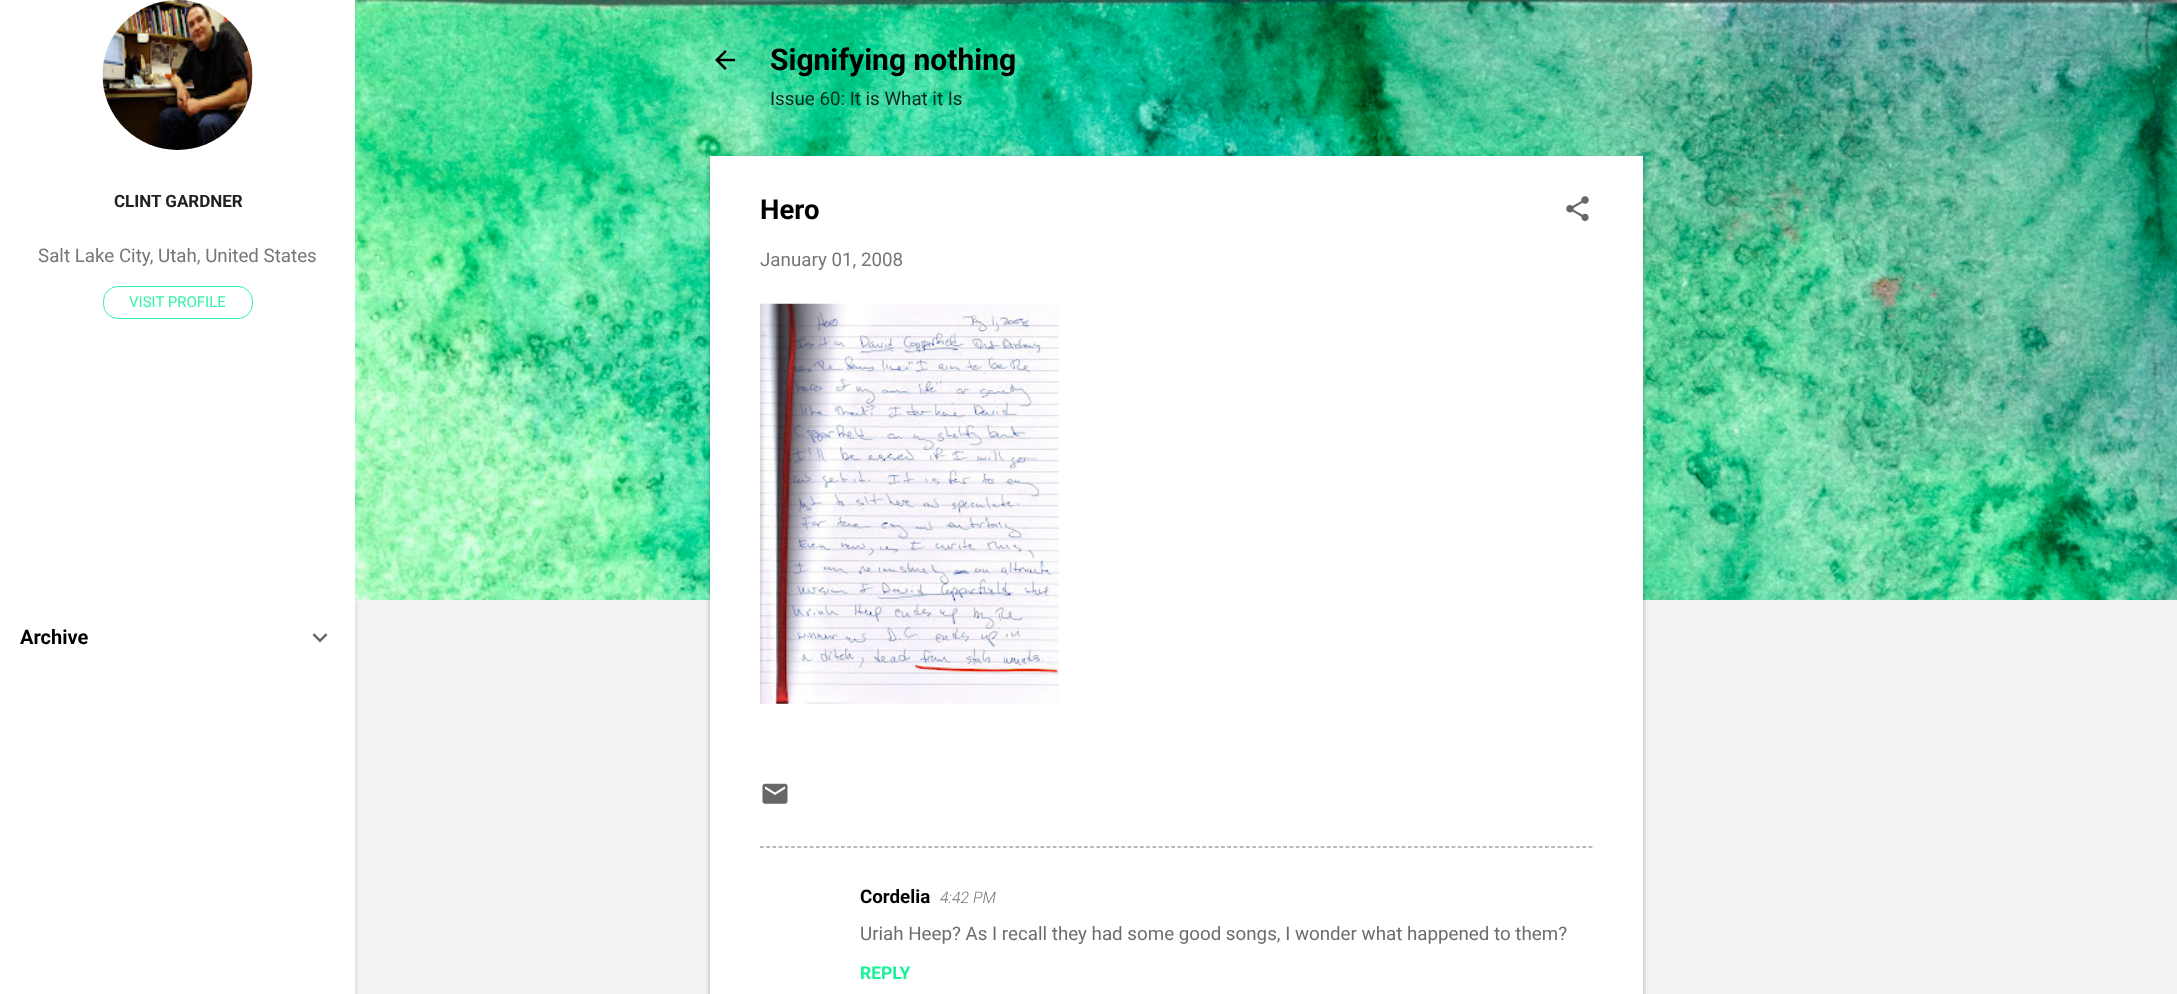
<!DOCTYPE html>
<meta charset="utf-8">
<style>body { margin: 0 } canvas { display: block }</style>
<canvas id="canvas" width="2177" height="994"></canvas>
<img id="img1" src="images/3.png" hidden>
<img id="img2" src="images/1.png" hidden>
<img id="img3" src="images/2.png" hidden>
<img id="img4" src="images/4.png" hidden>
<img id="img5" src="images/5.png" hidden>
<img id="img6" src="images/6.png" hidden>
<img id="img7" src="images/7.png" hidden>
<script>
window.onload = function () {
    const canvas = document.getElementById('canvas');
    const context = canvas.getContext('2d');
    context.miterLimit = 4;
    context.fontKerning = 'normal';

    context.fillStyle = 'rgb(242, 242, 242)';
    context.fillRect(0, 0, 2177, 994);
    context.drawImage(document.getElementById('img1'), 355, 0, 1822, 600);
    context.fillStyle = 'rgba(0, 0, 0, 0.1)';
    context.filter = 'blur(2px)';
    context.beginPath();
    context.rect(1, 601, 355, 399);
    context.fill();
    context.filter = 'none';
    context.fillStyle = 'rgb(255, 255, 255)';
    context.fillRect(0, 0, 355, 994);
    context.drawImage(document.getElementById('img2'), 102, 0, 151, 150);
    context.beginPath();
    context.roundRect(103.5, 286.5, 149, 32, 14.5);
    context.strokeStyle = 'rgb(52, 244, 165)';
    context.stroke();
    context.drawImage(document.getElementById('img3'), 312, 633, 16, 10);
    context.drawImage(document.getElementById('img4'), 715, 50, 20, 20);
    context.fillStyle = 'rgba(0, 0, 0, 0.3)';
    context.filter = 'blur(2.5px)';
    context.beginPath();
    context.rect(710, 158, 933, 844);
    context.fill();
    context.filter = 'none';
    context.fillStyle = 'rgb(255, 255, 255)';
    context.fillRect(710, 156, 933, 838);
    context.drawImage(document.getElementById('img5'), 1566, 196, 23, 26);
    context.drawImage(document.getElementById('img6'), 760, 303, 299, 401);
    context.drawImage(document.getElementById('img7'), 762, 783, 26, 21);
    context.beginPath();
    context.moveTo(760, 847);
    context.lineTo(1592.5, 847);
    context.strokeStyle = 'rgb(117, 117, 117)';
    context.lineWidth = 1.2;
    context.setLineDash([3.75, 2.48]);
    context.stroke();
    context.font = 'bold 17px Roboto';
    context.fillStyle = 'rgb(33, 33, 33)';
    context.fillText('CLINT GARDNER', 114, 207);
    context.font = '18.75px Roboto';
    context.fillStyle = 'rgb(118, 118, 118)';
    context.fillText('Salt Lake City, Utah, United States', 38, 262);
    context.font = '15px Roboto';
    context.fillStyle = 'rgb(52, 244, 165)';
    context.fillText('VISIT PROFILE', 129, 307);
    context.font = 'bold 20px Roboto';
    context.fillStyle = 'rgb(0, 0, 0)';
    context.fillText('Archive', 20, 644);
    context.font = 'bold 30px Roboto';
    context.fillText('Signifying nothing', 770, 70);
    context.font = '18.75px Roboto';
    context.fillStyle = 'rgb(9, 43, 31)';
    context.fillText('Issue 60: It is What it Is', 770, 105);
    context.font = 'bold 27.5px Roboto';
    context.fillStyle = 'rgb(0, 0, 0)';
    context.fillText('Hero', 760, 219);
    context.font = '18.75px Roboto';
    context.fillStyle = 'rgb(118, 118, 118)';
    context.fillText('January 01, 2008', 760, 266);
    context.font = 'bold 18.75px Roboto';
    context.fillStyle = 'rgb(0, 0, 0)';
    context.fillText('Cordelia', 860, 903);
    context.font = 'italic 300 16px Roboto';
    context.fillStyle = 'rgb(118, 118, 118)';
    context.fillText('4:42 PM', 940, 903);
    context.font = '18.75px Roboto';
    context.fillStyle = 'rgb(109, 109, 109)';
    context.fillText('Uriah Heep? As I recall they had some good songs, I wonder what happened to them?', 860, 940);
    context.font = 'bold 17.5px Roboto';
    context.fillStyle = 'rgb(22, 242, 152)';
    context.fillText('REPLY', 860, 979);
};
</script>
